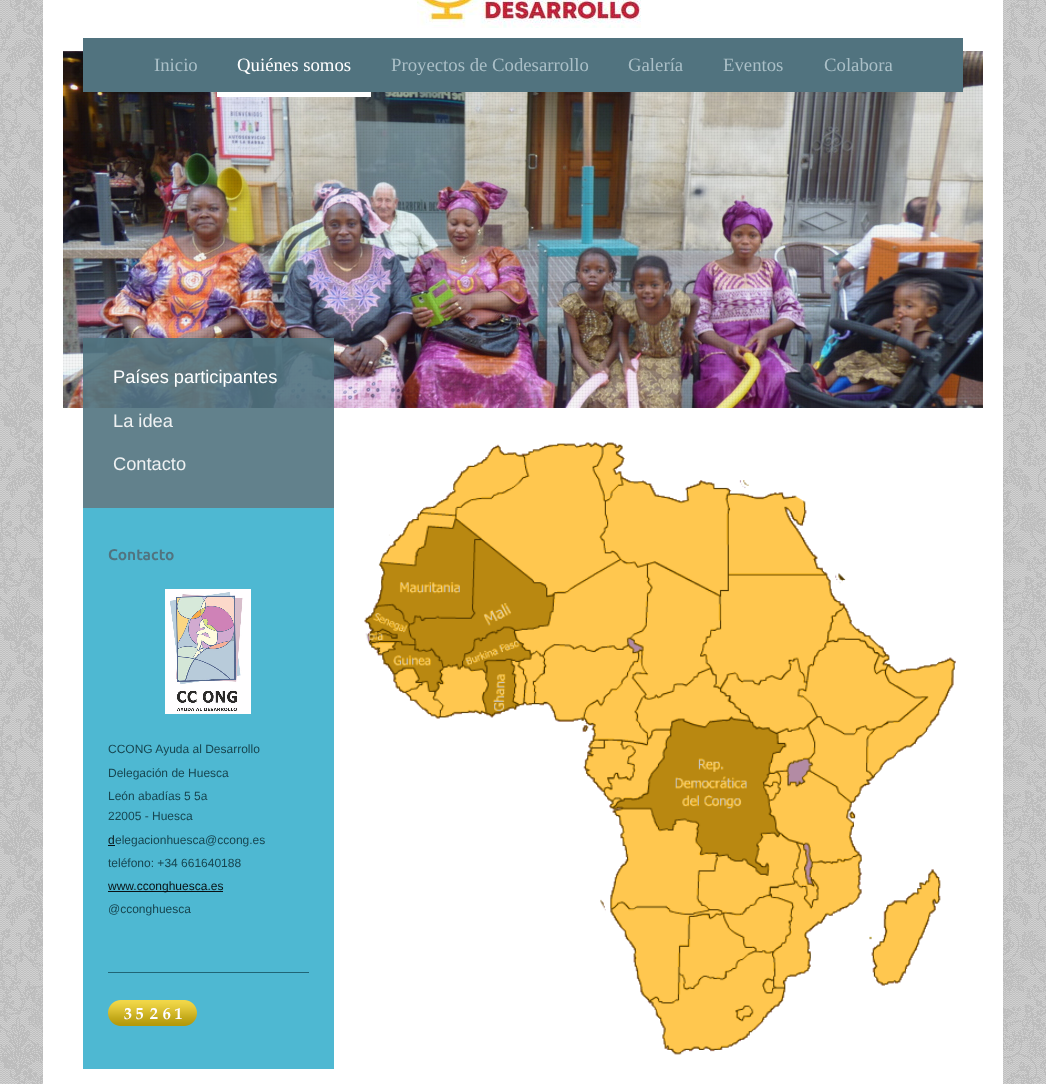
<!DOCTYPE html>
<meta charset="utf-8">
<style>body { margin: 0 } canvas { display: block }</style>
<canvas id="canvas" width="1046" height="1084"></canvas>
<img id="img1" src="images/1.png" hidden>
<img id="img2" src="images/2.png" hidden>
<img id="img3" src="images/3.png" hidden>
<img id="img4" src="images/4.png" hidden>
<img id="img5" src="images/5.png" hidden>
<img id="img6" src="images/6.png" hidden>
<img id="img7" src="images/7.png" hidden>
<img id="img8" src="images/8.png" hidden>
<img id="img9" src="images/9.png" hidden>
<img id="img10" src="images/10.png" hidden>
<img id="img11" src="images/11.png" hidden>
<img id="img12" src="images/12.png" hidden>
<img id="img13" src="images/13.png" hidden>
<script>
window.onload = function () {
    const canvas = document.getElementById('canvas');
    const context = canvas.getContext('2d');
    context.miterLimit = 4;
    context.fontKerning = 'normal';

    context.fillStyle = 'rgb(255, 255, 255)';
    context.fillRect(0, 0, 1046, 1084);
    context.drawImage(document.getElementById('img1'), 0, 0, 1046, 1084);
    context.fillRect(43, 0, 960, 1084);
    context.drawImage(document.getElementById('img2'), 417, 0, 224, 28);
    context.drawImage(document.getElementById('img3'), 63, 51, 920, 357);
    context.drawImage(document.getElementById('img4'), 63, 51, 920, 357);
    context.fillStyle = 'rgb(81, 115, 127)';
    context.fillRect(83, 38, 880, 54);
    context.fillStyle = 'rgb(255, 255, 255)';
    context.fillRect(217, 92, 154, 5);
    context.fillStyle = 'rgba(81, 115, 127, 0.9)';
    context.fillRect(83, 338, 251, 170);
    context.fillStyle = 'rgb(78, 184, 210)';
    context.fillRect(83, 508, 251, 561);
    context.drawImage(document.getElementById('img5'), 165, 589, 86, 125);
    context.fillStyle = 'rgb(8, 18, 21)';
    context.fillRect(108, 845, 7, 1);
    context.fillRect(108, 891, 115, 1);
    context.fillStyle = 'rgb(32, 101, 118)';
    context.fillRect(108, 972, 201, 1);
    context.drawImage(document.getElementById('img6'), 108, 1000, 14, 26);
    context.drawImage(document.getElementById('img7'), 122, 1000, 12, 26);
    context.drawImage(document.getElementById('img8'), 134, 1000, 14, 26);
    context.drawImage(document.getElementById('img9'), 148, 1000, 13, 26);
    context.drawImage(document.getElementById('img10'), 161, 1000, 13, 26);
    context.drawImage(document.getElementById('img11'), 174, 1000, 10, 26);
    context.drawImage(document.getElementById('img12'), 184, 1000, 13, 26);
    context.drawImage(document.getElementById('img13'), 364, 442, 592, 613);
    context.font = '18.75px Liberation Serif';
    context.fillStyle = 'rgb(170, 191, 199)';
    context.fillText('Inicio', 154, 71);
    context.fillStyle = 'rgb(255, 255, 255)';
    context.fillText('Quiénes somos', 237, 71);
    context.fillStyle = 'rgb(170, 191, 199)';
    context.fillText('Proyectos de Codesarrollo', 391, 71);
    context.fillText('Galería', 628, 71);
    context.fillText('Eventos', 723, 71);
    context.fillText('Colabora', 824, 71);
    context.font = '18.25px Liberation Sans';
    context.fillStyle = 'rgb(255, 255, 255)';
    context.fillText('Países participantes', 113, 383);
    context.fillStyle = 'rgb(238, 241, 242)';
    context.fillText('La idea', 113, 427);
    context.fillText('Contacto', 113, 470);
    context.font = 'bold 15.5px Ubuntu';
    context.fillStyle = 'rgb(81, 115, 127)';
    context.fillText('Contacto', 108, 560);
    context.font = '12px Arimo';
    context.fillStyle = 'rgb(23, 70, 81)';
    context.fillText('CCONG Ayuda al Desarrollo', 108, 753);
    context.fillText('Delegación de Huesca', 108, 777);
    context.fillText('León abadías 5 5a', 108, 800);
    context.fillText('22005 - Huesca', 108, 820);
    context.fillStyle = 'rgb(8, 18, 21)';
    context.fillText('d', 108, 844);
    context.fillStyle = 'rgb(23, 70, 81)';
    context.fillText('elegacionhuesca@ccong.es', 115, 844);
    context.fillText('teléfono: +34 661640188', 108, 867);
    context.fillStyle = 'rgb(8, 18, 21)';
    context.fillText('www.cconghuesca.es', 108, 890);
    context.fillStyle = 'rgb(23, 70, 81)';
    context.fillText('@cconghuesca', 108, 913);
};
</script>
